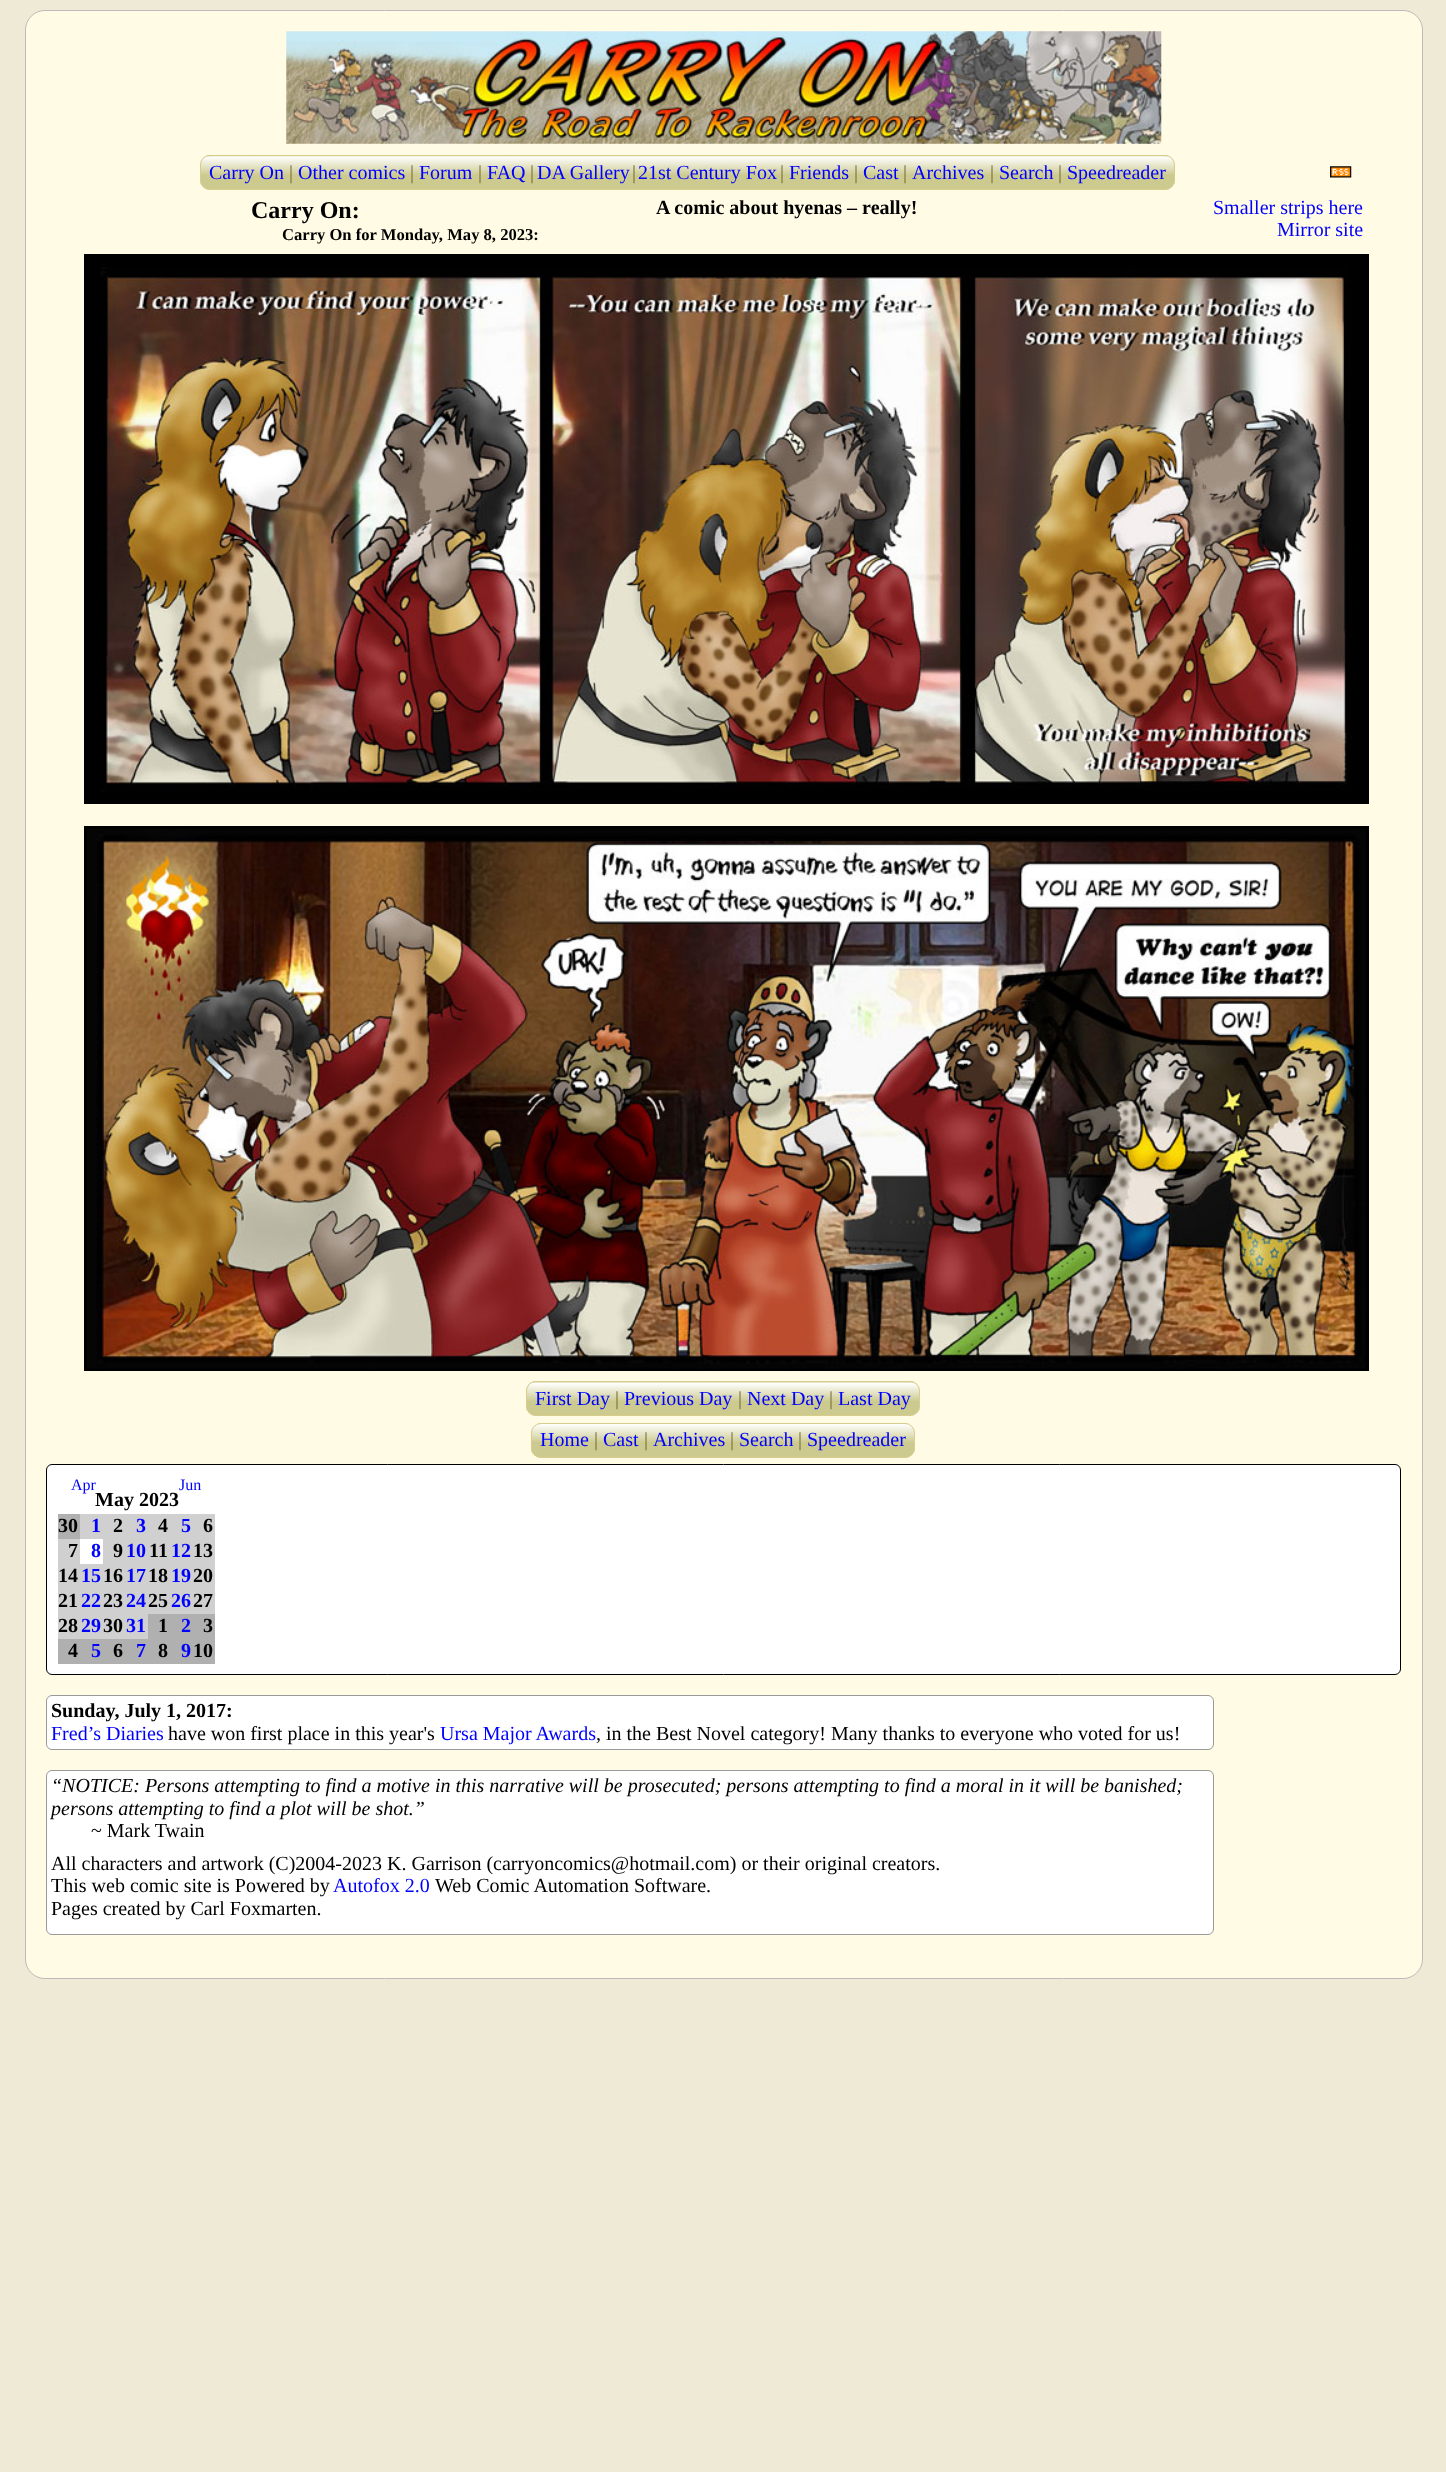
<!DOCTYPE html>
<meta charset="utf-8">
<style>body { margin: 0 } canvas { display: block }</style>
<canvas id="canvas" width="1446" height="2472"></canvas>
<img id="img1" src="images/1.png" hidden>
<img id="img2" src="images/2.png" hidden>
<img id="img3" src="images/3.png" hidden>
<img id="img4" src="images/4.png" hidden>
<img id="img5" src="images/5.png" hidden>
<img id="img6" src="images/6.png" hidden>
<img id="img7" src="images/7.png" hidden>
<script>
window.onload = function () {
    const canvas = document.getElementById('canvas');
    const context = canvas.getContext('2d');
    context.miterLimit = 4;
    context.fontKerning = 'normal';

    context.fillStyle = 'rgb(238, 234, 213)';
    context.fillRect(0, 0, 1446, 2472);
    context.fillStyle = 'rgb(255, 251, 228)';
    context.beginPath();
    context.roundRect(25.5, 10.5, 1397, 1968, 19.5);
    context.fill();
    context.strokeStyle = 'rgb(187, 187, 187)';
    context.stroke();
    context.drawImage(document.getElementById('img1'), 286, 31, 876, 113);
    context.fillStyle = 'rgb(204, 202, 143)';
    context.beginPath();
    context.roundRect(200, 155, 975, 35, 10);
    context.fill();
    context.drawImage(document.getElementById('img2'), 200, 156, 975, 19);
    context.beginPath();
    context.roundRect(200.5, 155.5, 974, 34, 9.5);
    context.strokeStyle = 'rgb(217, 205, 141)';
    context.stroke();
    context.drawImage(document.getElementById('img3'), 1330, 166, 22, 12);
    context.fillStyle = 'rgb(0, 0, 0)';
    context.fillRect(84, 254, 1285, 550);
    context.drawImage(document.getElementById('img4'), 100, 267, 1252, 525);
    context.fillRect(84, 826, 1285, 545);
    context.drawImage(document.getElementById('img5'), 87, 829, 1279, 540);
    context.fillStyle = 'rgb(204, 202, 143)';
    context.beginPath();
    context.roundRect(526, 1381, 394, 35, 10);
    context.fill();
    context.drawImage(document.getElementById('img6'), 526, 1382, 394, 19);
    context.beginPath();
    context.roundRect(526.5, 1381.5, 393, 34, 9.5);
    context.stroke();
    context.beginPath();
    context.roundRect(531, 1423, 384, 35, 10);
    context.fill();
    context.drawImage(document.getElementById('img7'), 531, 1423, 384, 19);
    context.beginPath();
    context.roundRect(531.5, 1423.5, 383, 34, 9.5);
    context.stroke();
    context.fillStyle = 'rgb(255, 255, 255)';
    context.beginPath();
    context.roundRect(46.5, 1464.5, 1354, 210, 5.5);
    context.fill();
    context.strokeStyle = 'rgb(0, 0, 0)';
    context.stroke();
    context.fillStyle = 'rgb(208, 208, 208)';
    context.fillRect(80, 1514, 135, 25);
    context.fillStyle = 'rgb(176, 176, 176)';
    context.fillRect(58, 1514, 22, 25);
    context.fillStyle = 'rgb(208, 208, 208)';
    context.fillRect(58, 1539, 157, 75);
    context.fillStyle = 'rgb(255, 255, 255)';
    context.fillRect(80, 1539, 23, 25);
    context.fillStyle = 'rgb(208, 208, 208)';
    context.fillRect(58, 1614, 90, 25);
    context.fillStyle = 'rgb(176, 176, 176)';
    context.fillRect(148, 1614, 67, 25);
    context.fillRect(58, 1639, 157, 25);
    context.fillStyle = 'rgb(255, 255, 255)';
    context.beginPath();
    context.roundRect(46.5, 1695.5, 1167, 54, 5.5);
    context.fill();
    context.strokeStyle = 'rgb(153, 153, 153)';
    context.stroke();
    context.beginPath();
    context.roundRect(46.5, 1770.5, 1167, 164, 5.5);
    context.fill();
    context.stroke();
    context.font = '20px Liberation Serif';
    context.fillStyle = 'rgb(0, 0, 255)';
    context.fillText('Carry On', 209, 179);
    context.fillStyle = 'rgb(117, 107, 54)';
    context.fillText('|', 289, 179);
    context.fillStyle = 'rgb(0, 0, 255)';
    context.fillText('Other comics', 298, 179);
    context.fillStyle = 'rgb(117, 107, 54)';
    context.fillText('|', 410, 179);
    context.fillStyle = 'rgb(0, 0, 255)';
    context.fillText('Forum', 419, 179);
    context.fillStyle = 'rgb(117, 107, 54)';
    context.fillText('|', 478, 179);
    context.fillStyle = 'rgb(0, 0, 255)';
    context.fillText('FAQ', 487, 179);
    context.fillStyle = 'rgb(117, 107, 54)';
    context.fillText('|', 530, 179);
    context.fillStyle = 'rgb(0, 0, 255)';
    context.fillText('DA Gallery', 537, 179);
    context.fillStyle = 'rgb(117, 107, 54)';
    context.fillText('|', 632, 179);
    context.fillStyle = 'rgb(0, 0, 255)';
    context.fillText('21st Century Fox', 638, 179);
    context.fillStyle = 'rgb(117, 107, 54)';
    context.fillText('|', 780, 179);
    context.fillStyle = 'rgb(0, 0, 255)';
    context.fillText('Friends', 789, 179);
    context.fillStyle = 'rgb(117, 107, 54)';
    context.fillText('|', 854, 179);
    context.fillStyle = 'rgb(0, 0, 255)';
    context.fillText('Cast', 863, 179);
    context.fillStyle = 'rgb(117, 107, 54)';
    context.fillText('|', 903, 179);
    context.fillStyle = 'rgb(0, 0, 255)';
    context.fillText('Archives', 912, 179);
    context.fillStyle = 'rgb(117, 107, 54)';
    context.fillText('|', 990, 179);
    context.fillStyle = 'rgb(0, 0, 255)';
    context.fillText('Search', 999, 179);
    context.fillStyle = 'rgb(117, 107, 54)';
    context.fillText('|', 1058, 179);
    context.fillStyle = 'rgb(0, 0, 255)';
    context.fillText('Speedreader', 1067, 179);
    context.font = 'bold 24px Liberation Serif';
    context.fillStyle = 'rgb(0, 0, 0)';
    context.fillText('Carry On:', 251, 218);
    context.font = 'bold 20px Liberation Serif';
    context.fillText('A comic about hyenas – really!', 656, 214);
    context.font = '20px Liberation Serif';
    context.fillStyle = 'rgb(0, 0, 255)';
    context.fillText('Smaller strips here', 1213, 214);
    context.fillText('Mirror site', 1277, 236);
    context.font = 'bold 16.6px Liberation Serif';
    context.fillStyle = 'rgb(0, 0, 0)';
    context.fillText('Carry On for Monday, May 8, 2023:', 282, 240);
    context.font = '20px Liberation Serif';
    context.fillStyle = 'rgb(0, 0, 255)';
    context.fillText('First Day', 535, 1405);
    context.fillStyle = 'rgb(117, 107, 54)';
    context.fillText('|', 615, 1405);
    context.fillStyle = 'rgb(0, 0, 255)';
    context.fillText('Previous Day', 624, 1405);
    context.fillStyle = 'rgb(117, 107, 54)';
    context.fillText('|', 738, 1405);
    context.fillStyle = 'rgb(0, 0, 255)';
    context.fillText('Next Day', 747, 1405);
    context.fillStyle = 'rgb(117, 107, 54)';
    context.fillText('|', 829, 1405);
    context.fillStyle = 'rgb(0, 0, 255)';
    context.fillText('Last Day', 838, 1405);
    context.fillText('Home', 540, 1446);
    context.fillStyle = 'rgb(117, 107, 54)';
    context.fillText('|', 594, 1446);
    context.fillStyle = 'rgb(0, 0, 255)';
    context.fillText('Cast', 603, 1446);
    context.fillStyle = 'rgb(117, 107, 54)';
    context.fillText('|', 644, 1446);
    context.fillStyle = 'rgb(0, 0, 255)';
    context.fillText('Archives', 653, 1446);
    context.fillStyle = 'rgb(117, 107, 54)';
    context.fillText('|', 730, 1446);
    context.fillStyle = 'rgb(0, 0, 255)';
    context.fillText('Search', 739, 1446);
    context.fillStyle = 'rgb(117, 107, 54)';
    context.fillText('|', 798, 1446);
    context.fillStyle = 'rgb(0, 0, 255)';
    context.fillText('Speedreader', 807, 1446);
    context.font = '16px Liberation Serif';
    context.fillText('Apr', 71, 1490);
    context.fillText('Jun', 179, 1490);
    context.font = 'bold 20px Liberation Serif';
    context.fillStyle = 'rgb(0, 0, 0)';
    context.fillText('May 2023', 95, 1506);
    context.fillText('30', 58, 1532);
    context.fillStyle = 'rgb(0, 0, 255)';
    context.fillText('1', 91, 1532);
    context.fillStyle = 'rgb(0, 0, 0)';
    context.fillText('2', 113, 1532);
    context.fillStyle = 'rgb(0, 0, 255)';
    context.fillText('3', 136, 1532);
    context.fillStyle = 'rgb(0, 0, 0)';
    context.fillText('4', 158, 1532);
    context.fillStyle = 'rgb(0, 0, 255)';
    context.fillText('5', 181, 1532);
    context.fillStyle = 'rgb(0, 0, 0)';
    context.fillText('6', 203, 1532);
    context.fillText('7', 68, 1557);
    context.fillStyle = 'rgb(0, 0, 255)';
    context.fillText('8', 91, 1557);
    context.fillStyle = 'rgb(0, 0, 0)';
    context.fillText('9', 113, 1557);
    context.fillStyle = 'rgb(0, 0, 255)';
    context.fillText('10', 126, 1557);
    context.fillStyle = 'rgb(0, 0, 0)';
    context.fillText('11', 149, 1557);
    context.fillStyle = 'rgb(0, 0, 255)';
    context.fillText('12', 171, 1557);
    context.fillStyle = 'rgb(0, 0, 0)';
    context.fillText('13', 193, 1557);
    context.fillText('14', 58, 1582);
    context.fillStyle = 'rgb(0, 0, 255)';
    context.fillText('15', 81, 1582);
    context.fillStyle = 'rgb(0, 0, 0)';
    context.fillText('16', 103, 1582);
    context.fillStyle = 'rgb(0, 0, 255)';
    context.fillText('17', 126, 1582);
    context.fillStyle = 'rgb(0, 0, 0)';
    context.fillText('18', 148, 1582);
    context.fillStyle = 'rgb(0, 0, 255)';
    context.fillText('19', 171, 1582);
    context.fillStyle = 'rgb(0, 0, 0)';
    context.fillText('20', 193, 1582);
    context.fillText('21', 58, 1607);
    context.fillStyle = 'rgb(0, 0, 255)';
    context.fillText('22', 81, 1607);
    context.fillStyle = 'rgb(0, 0, 0)';
    context.fillText('23', 103, 1607);
    context.fillStyle = 'rgb(0, 0, 255)';
    context.fillText('24', 126, 1607);
    context.fillStyle = 'rgb(0, 0, 0)';
    context.fillText('25', 148, 1607);
    context.fillStyle = 'rgb(0, 0, 255)';
    context.fillText('26', 171, 1607);
    context.fillStyle = 'rgb(0, 0, 0)';
    context.fillText('27', 193, 1607);
    context.fillText('28', 58, 1632);
    context.fillStyle = 'rgb(0, 0, 255)';
    context.fillText('29', 81, 1632);
    context.fillStyle = 'rgb(0, 0, 0)';
    context.fillText('30', 103, 1632);
    context.fillStyle = 'rgb(0, 0, 255)';
    context.fillText('31', 126, 1632);
    context.fillStyle = 'rgb(0, 0, 0)';
    context.fillText('1', 158, 1632);
    context.fillStyle = 'rgb(0, 0, 255)';
    context.fillText('2', 181, 1632);
    context.fillStyle = 'rgb(0, 0, 0)';
    context.fillText('3', 203, 1632);
    context.fillText('4', 68, 1657);
    context.fillStyle = 'rgb(0, 0, 255)';
    context.fillText('5', 91, 1657);
    context.fillStyle = 'rgb(0, 0, 0)';
    context.fillText('6', 113, 1657);
    context.fillStyle = 'rgb(0, 0, 255)';
    context.fillText('7', 136, 1657);
    context.fillStyle = 'rgb(0, 0, 0)';
    context.fillText('8', 158, 1657);
    context.fillStyle = 'rgb(0, 0, 255)';
    context.fillText('9', 181, 1657);
    context.fillStyle = 'rgb(0, 0, 0)';
    context.fillText('10', 193, 1657);
    context.fillText('Sunday, July 1, 2017:', 51, 1717);
    context.font = '20px Liberation Serif';
    context.fillStyle = 'rgb(0, 0, 255)';
    context.fillText('Fred’s Diaries', 51, 1740);
    context.fillStyle = 'rgb(0, 0, 0)';
    context.fillText('have won first place in this year\'s', 168, 1740);
    context.fillStyle = 'rgb(0, 0, 255)';
    context.fillText('Ursa Major Awards', 440, 1740);
    context.fillStyle = 'rgb(0, 0, 0)';
    context.fillText(', in the Best Novel category! Many thanks to everyone who voted for us!', 596, 1740);
    context.font = 'italic 20px Liberation Serif';
    context.fillText('“NOTICE: Persons attempting to find a motive in this narrative will be prosecuted; persons attempting to find a moral in it will be banished;', 51, 1792);
    context.fillText('persons attempting to find a plot will be shot.”', 51, 1815);
    context.font = '20px Liberation Serif';
    context.fillText('~ Mark Twain', 91, 1837);
    context.fillText('All characters and artwork (C)2004-2023 K. Garrison (carryoncomics@hotmail.com) or their original creators.', 51, 1870);
    context.fillText('This web comic site is Powered by', 51, 1892);
    context.fillStyle = 'rgb(0, 0, 255)';
    context.fillText('Autofox 2.0', 333, 1892);
    context.fillStyle = 'rgb(0, 0, 0)';
    context.fillText('Web Comic Automation Software.', 435, 1892);
    context.fillText('Pages created by Carl Foxmarten.', 51, 1915);
};
</script>
